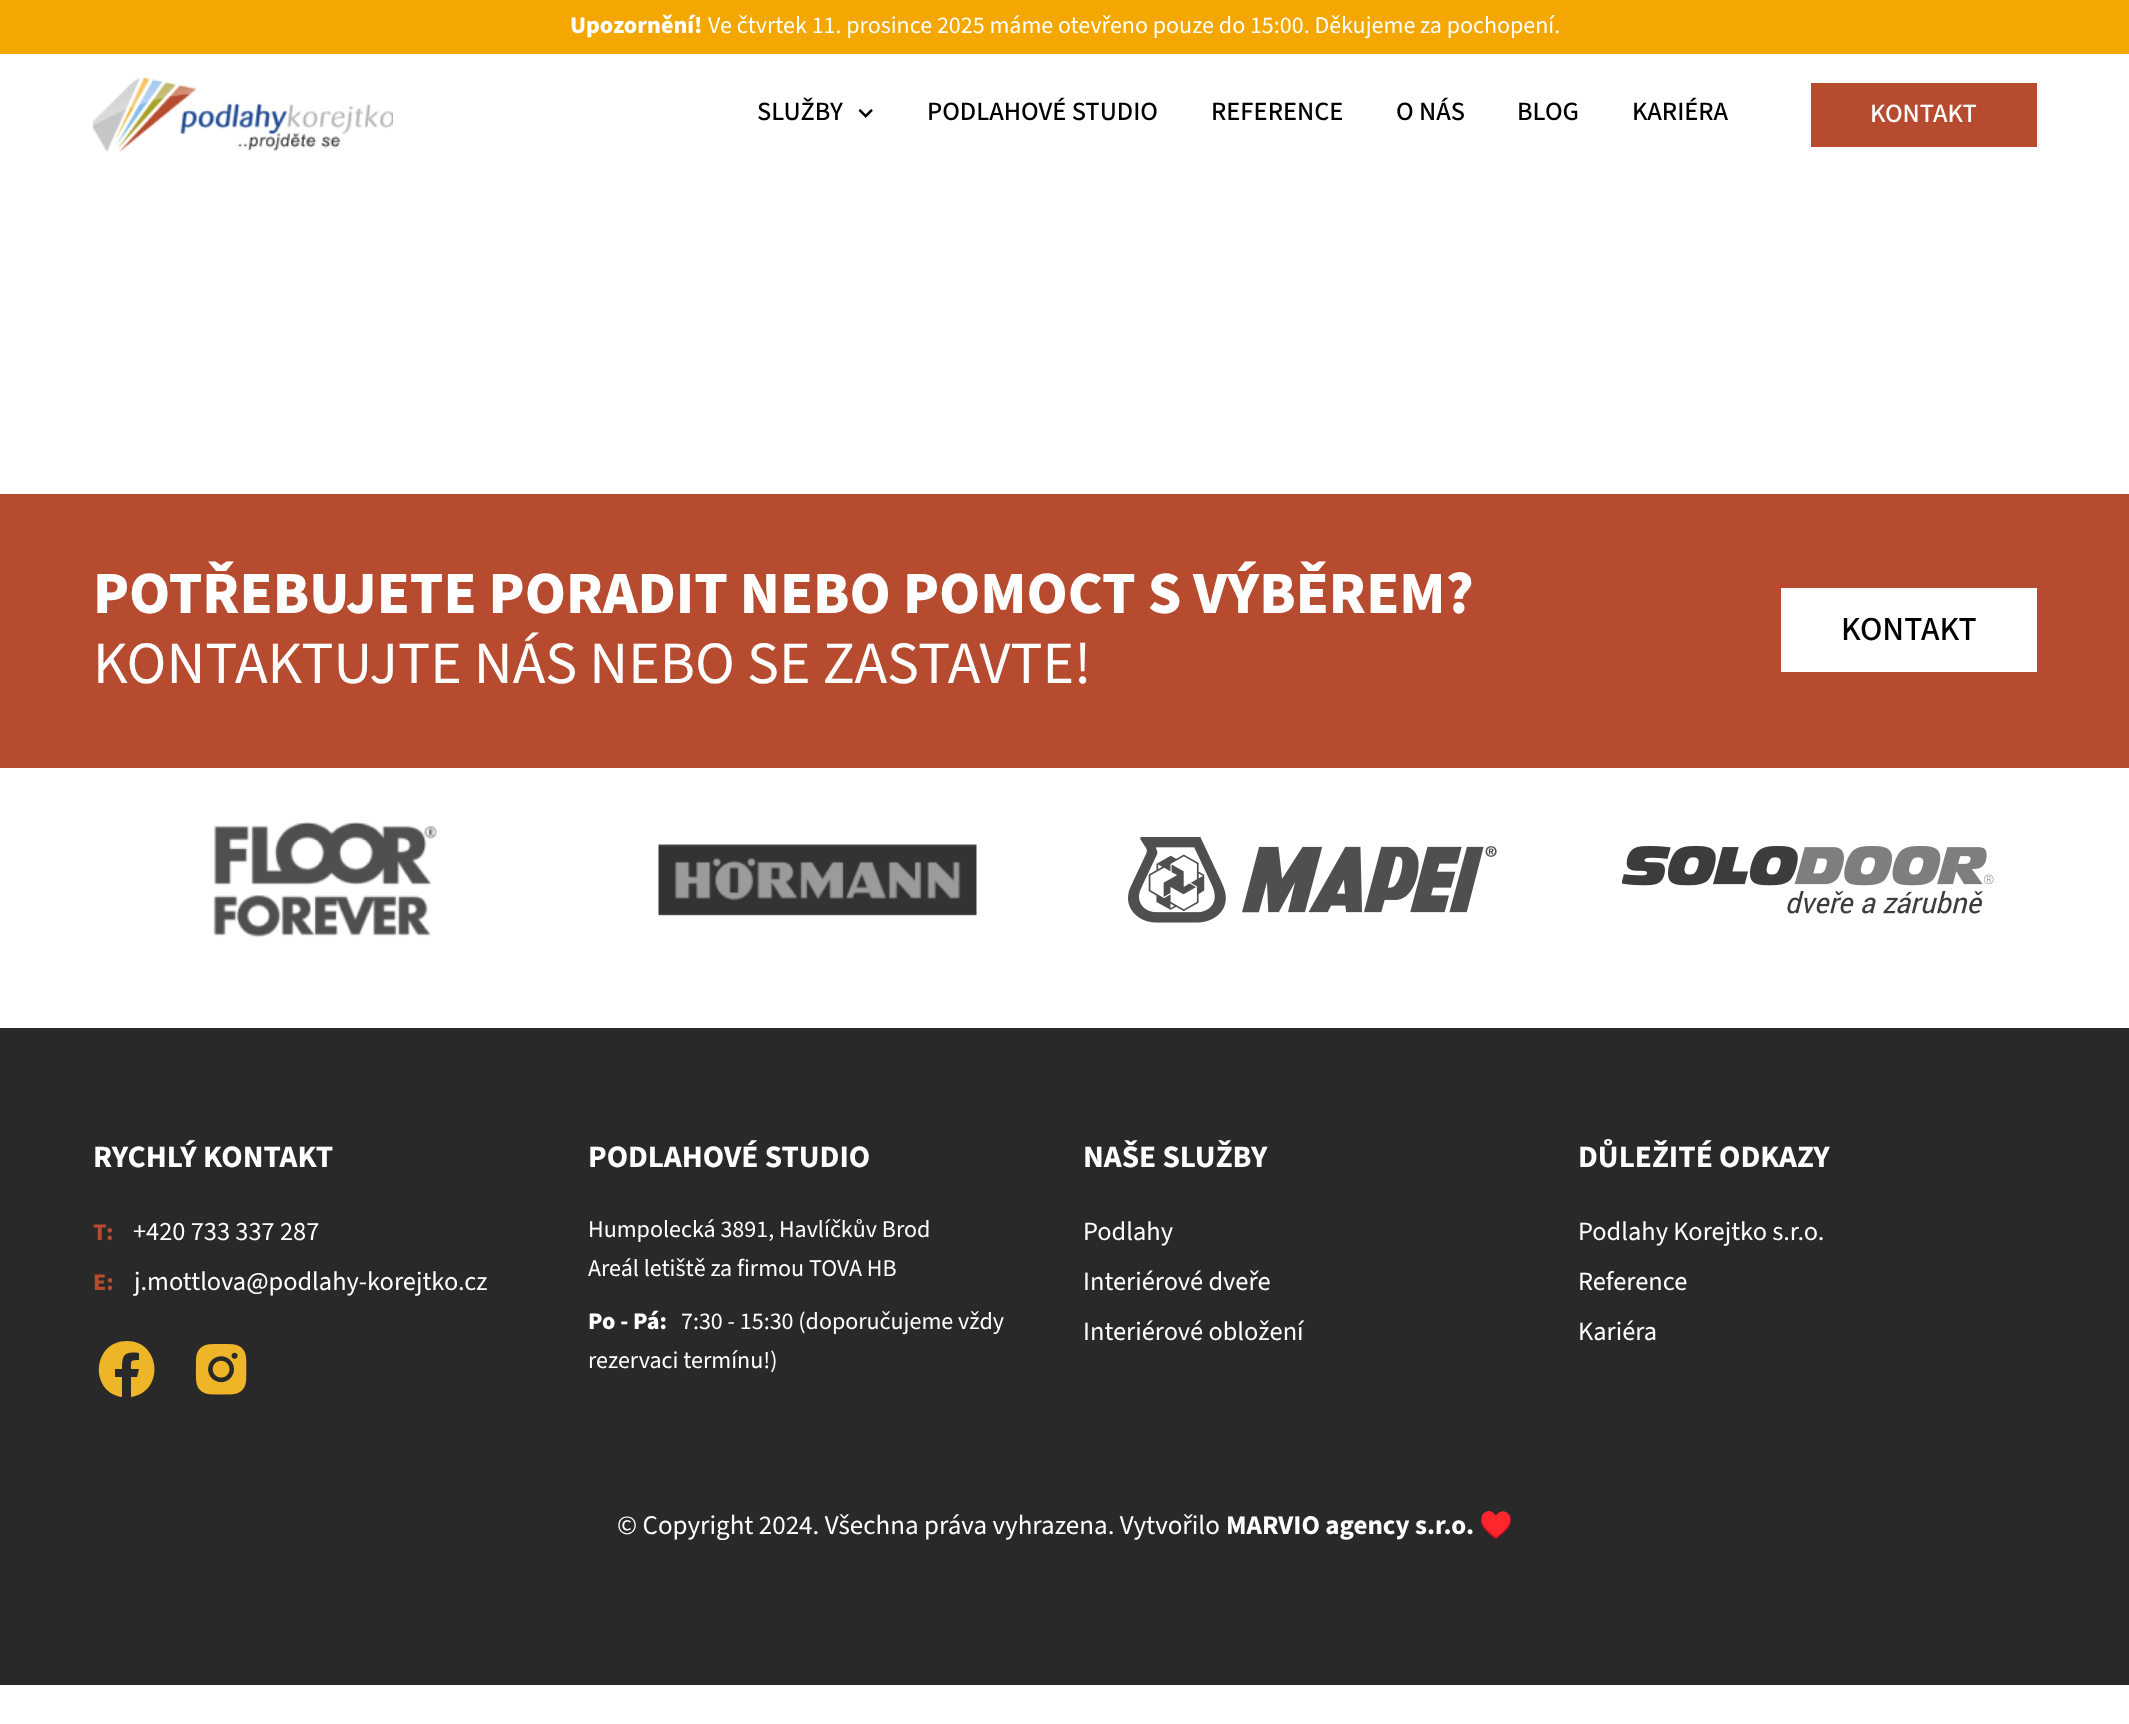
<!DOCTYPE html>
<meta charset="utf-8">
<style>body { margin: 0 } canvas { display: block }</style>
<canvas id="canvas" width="2129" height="1724"></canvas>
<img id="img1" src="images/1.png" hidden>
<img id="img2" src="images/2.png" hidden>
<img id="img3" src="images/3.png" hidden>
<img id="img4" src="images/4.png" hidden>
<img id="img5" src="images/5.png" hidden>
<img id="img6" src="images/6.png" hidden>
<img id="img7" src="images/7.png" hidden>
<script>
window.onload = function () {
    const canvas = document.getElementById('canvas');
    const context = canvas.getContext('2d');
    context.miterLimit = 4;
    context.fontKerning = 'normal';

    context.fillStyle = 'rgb(255, 255, 255)';
    context.fillRect(0, 0, 2129, 1724);
    context.fillStyle = 'rgb(244, 167, 0)';
    context.fillRect(0, 0, 2129, 54);
    context.drawImage(document.getElementById('img1'), 93, 78, 300, 74);
    context.drawImage(document.getElementById('img2'), 858, 109, 15, 9);
    context.fillStyle = 'rgb(183, 75, 47)';
    context.fillRect(1811, 83, 226, 64);
    context.fillRect(0, 494, 2129, 274);
    context.fillStyle = 'rgb(255, 255, 255)';
    context.fillRect(1781, 588, 256, 84);
    context.drawImage(document.getElementById('img3'), 213, 821, 225, 117);
    context.drawImage(document.getElementById('img4'), 658, 844, 319, 72);
    context.drawImage(document.getElementById('img5'), 1128, 837, 369, 86);
    context.drawImage(document.getElementById('img6'), 1622, 846, 372, 68);
    context.fillStyle = 'rgb(41, 41, 41)';
    context.fillRect(0, 1028, 2129, 657);
    context.fillStyle = 'rgb(238, 181, 40)';
    context.beginPath();
    context.moveTo(127, 1341);
    context.bezierCurveTo(92, 1341, 89, 1392, 122, 1397);
    context.lineTo(122, 1377);
    context.lineTo(115, 1377);
    context.lineTo(115, 1369);
    context.lineTo(122, 1369);
    context.bezierCurveTo(122, 1355, 124, 1351, 139, 1353);
    context.lineTo(139, 1360);
    context.bezierCurveTo(130, 1360, 131, 1361, 131, 1369);
    context.lineTo(139, 1369);
    context.lineTo(137, 1377);
    context.lineTo(131, 1377);
    context.lineTo(131, 1397);
    context.bezierCurveTo(165, 1392, 161, 1341, 127, 1341);
    context.closePath();
    context.fill();
    context.drawImage(document.getElementById('img7'), 195, 1344, 52, 51);
    context.font = '800 24px "Source Sans 3"';
    context.fillStyle = 'rgb(255, 255, 255)';
    context.fillText('Upozornění!', 570, 33);
    context.font = '24px "Source Sans 3"';
    context.fillText('Ve čtvrtek 11. prosince 2025 máme otevřeno pouze do 15:00. Děkujeme za pochopení.', 708, 33);
    context.font = '500 26.4px "Source Sans 3"';
    context.fillStyle = 'rgb(0, 0, 0)';
    context.fillText('SLUŽBY', 757, 120);
    context.fillText('PODLAHOVÉ STUDIO', 927, 120);
    context.fillText('REFERENCE', 1211, 120);
    context.fillText('O NÁS', 1396, 120);
    context.fillText('BLOG', 1517, 120);
    context.fillText('KARIÉRA', 1632, 120);
    context.fillStyle = 'rgb(255, 255, 255)';
    context.fillText('KONTAKT', 1870, 122);
    context.font = '800 60px "Source Sans 3"';
    context.fillText('POTŘEBUJETE PORADIT NEBO POMOCT S VÝBĚREM?', 93, 613);
    context.font = '60px "Source Sans 3"';
    context.fillText('KONTAKTUJTE NÁS NEBO SE ZASTAVTE!', 93, 683);
    context.font = '500 33.5px "Source Sans 3"';
    context.fillStyle = 'rgb(0, 0, 0)';
    context.fillText('KONTAKT', 1841, 640);
    context.font = 'bold 31.25px "Source Sans 3"';
    context.fillStyle = 'rgb(255, 255, 255)';
    context.fillText('RYCHLÝ KONTAKT', 93, 1167);
    context.font = '800 24px "Source Sans 3"';
    context.fillStyle = 'rgb(183, 75, 47)';
    context.fillText('T:', 93, 1240);
    context.font = '26.4px "Source Sans 3"';
    context.fillStyle = 'rgb(255, 255, 255)';
    context.fillText('+420 733 337 287', 133, 1240);
    context.font = '800 24px "Source Sans 3"';
    context.fillStyle = 'rgb(183, 75, 47)';
    context.fillText('E:', 93, 1290);
    context.font = '26.4px "Source Sans 3"';
    context.fillStyle = 'rgb(255, 255, 255)';
    context.fillText('j.mottlova@podlahy-korejtko.cz', 134, 1290);
    context.font = 'bold 31.25px "Source Sans 3"';
    context.fillText('PODLAHOVÉ STUDIO', 588, 1167);
    context.font = '24px "Source Sans 3"';
    context.fillText('Humpolecká 3891, Havlíčkův Brod', 588, 1237);
    context.fillText('Areál letiště za firmou TOVA HB', 588, 1276);
    context.font = '800 24px "Source Sans 3"';
    context.fillText('Po - Pá:', 588, 1329);
    context.font = '24px "Source Sans 3"';
    context.fillText('7:30 - 15:30 (doporučujeme vždy', 681, 1329);
    context.fillText('rezervaci termínu!)', 588, 1368);
    context.font = 'bold 31.25px "Source Sans 3"';
    context.fillText('NAŠE SLUŽBY', 1083, 1167);
    context.font = '26.4px "Source Sans 3"';
    context.fillText('Podlahy', 1083, 1240);
    context.fillText('Interiérové dveře', 1083, 1290);
    context.fillText('Interiérové obložení', 1083, 1340);
    context.font = 'bold 31.25px "Source Sans 3"';
    context.fillText('DŮLEŽITÉ ODKAZY', 1578, 1167);
    context.font = '26.4px "Source Sans 3"';
    context.fillText('Podlahy Korejtko s.r.o.', 1578, 1240);
    context.fillText('Reference', 1578, 1290);
    context.fillText('Kariéra', 1578, 1340);
    context.font = '27px "Source Sans 3"';
    context.fillText('© Copyright 2024. Všechna práva vyhrazena. Vytvořilo', 617, 1534);
    context.font = 'bold 27px "Source Sans 3"';
    context.fillText('MARVIO agency s.r.o.', 1226, 1534);
    context.font = '27px Noto Color Emoji';
    context.fillText('♥️', 1479, 1534);
};
</script>
